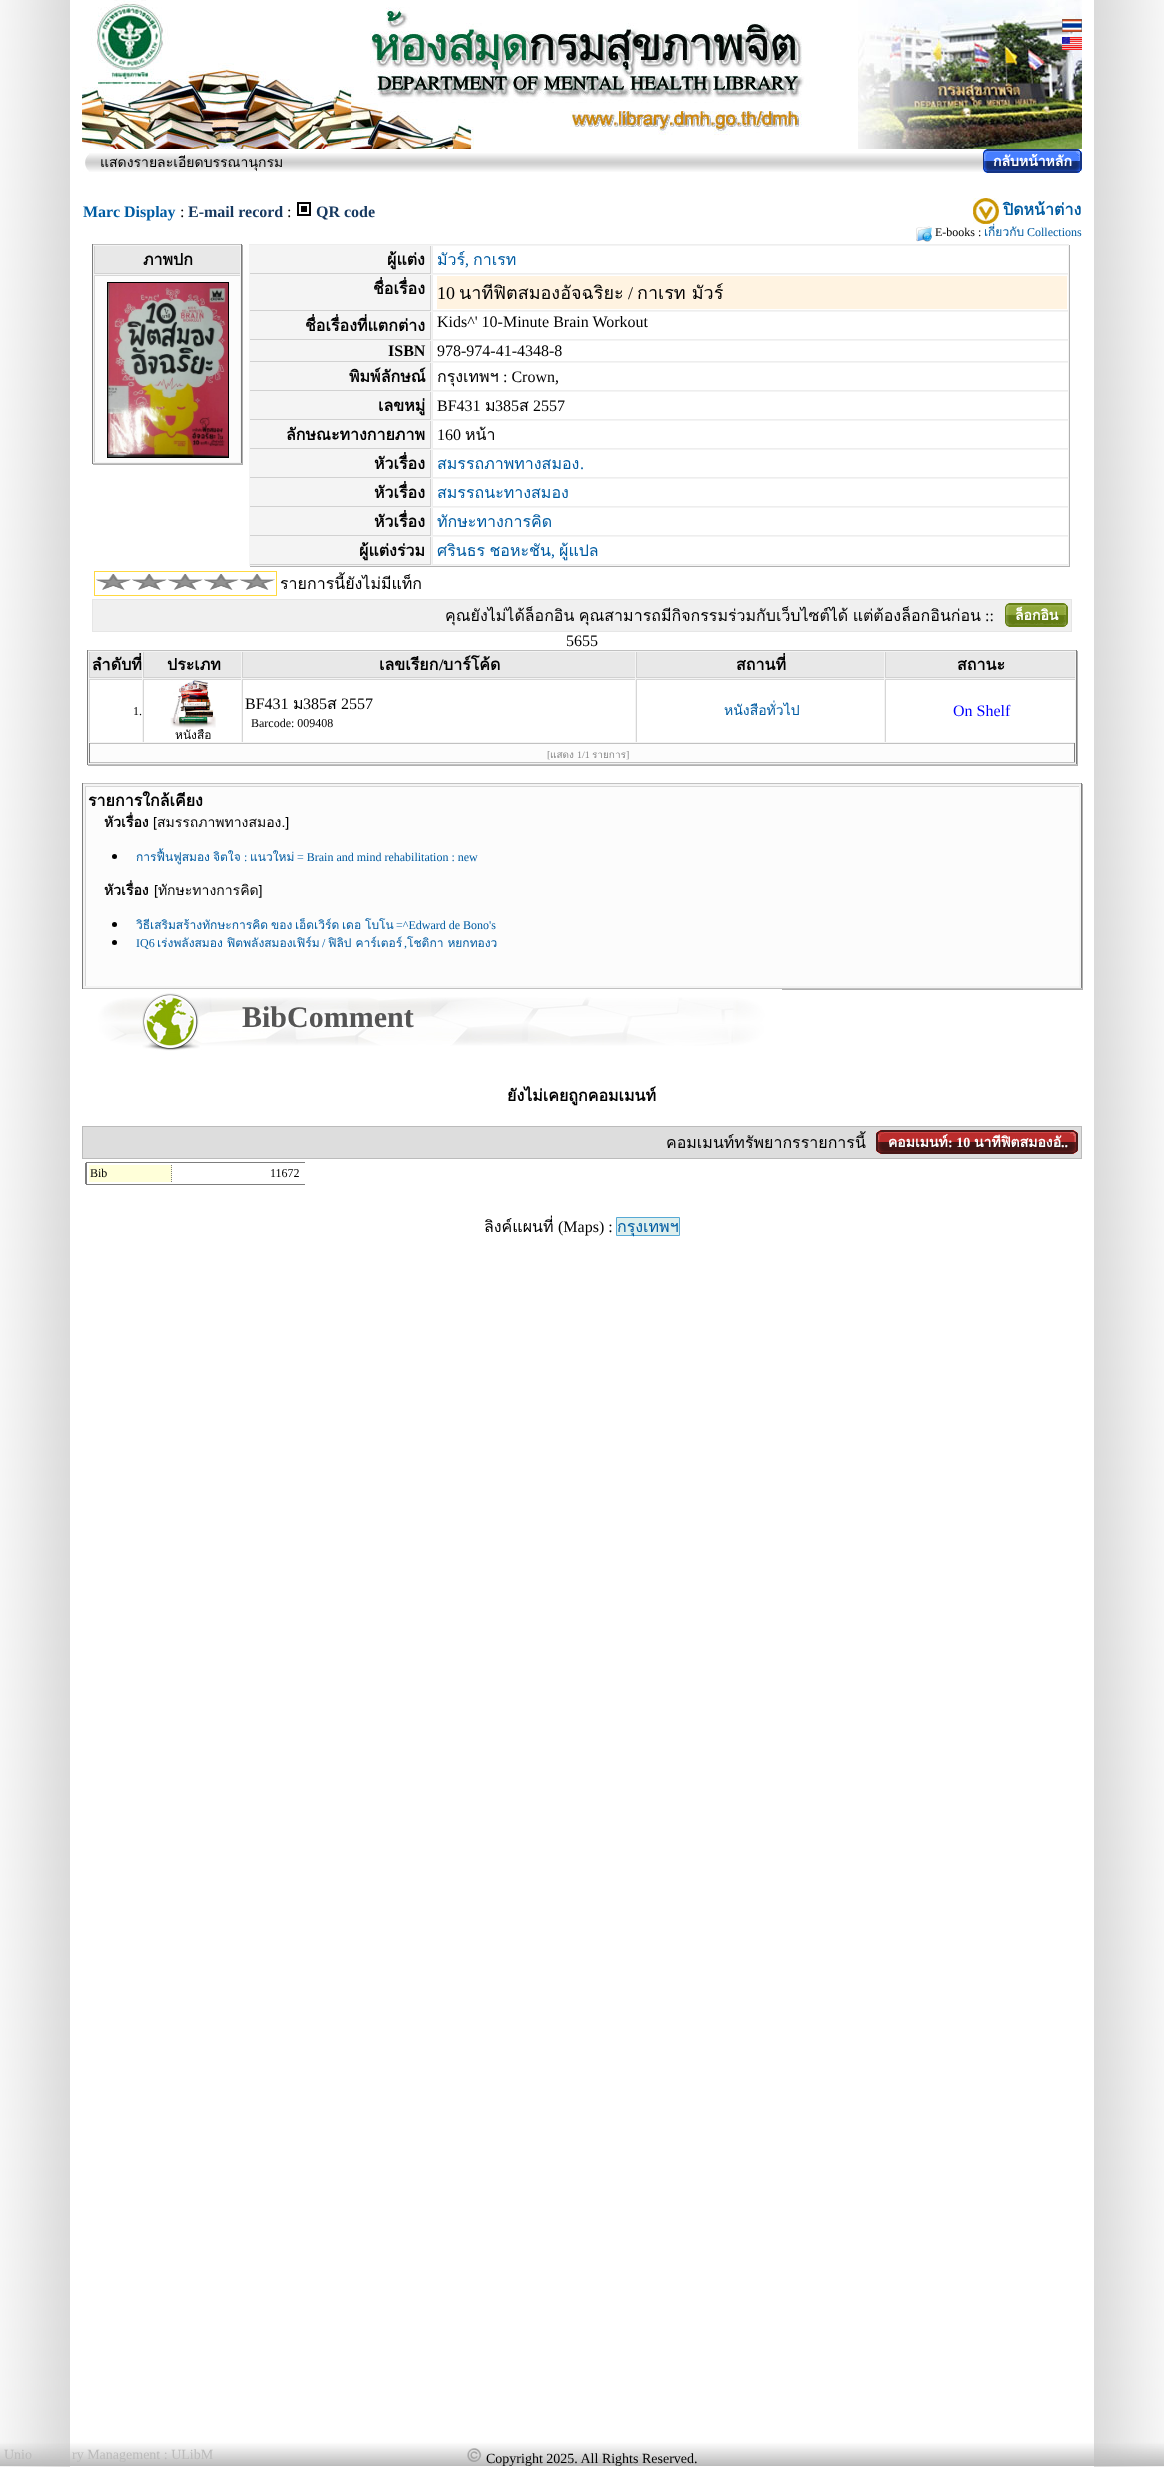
<!DOCTYPE html>
<meta charset="utf-8">
<style>body { margin: 0 } canvas { display: block }</style>
<canvas id="canvas" width="1164" height="2467"></canvas>
<img id="img1" src="images/1.png" hidden>
<img id="img2" src="images/2.png" hidden>
<img id="img3" src="images/3.png" hidden>
<img id="img4" src="images/4.png" hidden>
<img id="img5" src="images/5.png" hidden>
<img id="img6" src="images/6.png" hidden>
<img id="img7" src="images/7.png" hidden>
<img id="img8" src="images/8.png" hidden>
<img id="img9" src="images/9.png" hidden>
<img id="img10" src="images/10.png" hidden>
<img id="img11" src="images/11.png" hidden>
<img id="img12" src="images/12.png" hidden>
<img id="img13" src="images/13.png" hidden>
<img id="img14" src="images/14.png" hidden>
<img id="img15" src="images/15.png" hidden>
<img id="img16" src="images/16.png" hidden>
<img id="img17" src="images/17.png" hidden>
<img id="img18" src="images/18.png" hidden>
<img id="img19" src="images/19.png" hidden>
<img id="img20" src="images/20.png" hidden>
<img id="img21" src="images/21.png" hidden>
<script>
window.onload = function () {
    const canvas = document.getElementById('canvas');
    const context = canvas.getContext('2d');
    context.miterLimit = 4;
    context.fontKerning = 'normal';

    context.fillStyle = 'rgb(255, 255, 255)';
    context.fillRect(0, 0, 1164, 2467);
    context.drawImage(document.getElementById('img1'), 0, 0, 1164, 2467);
    context.drawImage(document.getElementById('img2'), 82, 0, 1000, 149);
    context.drawImage(document.getElementById('img3'), 1062, 19, 20, 13);
    context.drawImage(document.getElementById('img4'), 1062, 37, 20, 13);
    context.drawImage(document.getElementById('img5'), 89, 153, 654, 19);
    context.drawImage(document.getElementById('img6'), 82, 153, 7, 19);
    context.drawImage(document.getElementById('img7'), 743, 153, 339, 19);
    context.drawImage(document.getElementById('img8'), 983, 149, 6, 24);
    context.drawImage(document.getElementById('img9'), 989, 149, 93, 24);
    context.drawImage(document.getElementById('img10'), 297, 202, 14, 14);
    context.drawImage(document.getElementById('img11'), 973, 198, 26, 26);
    context.drawImage(document.getElementById('img12'), 916, 226, 16, 16);
    context.fillStyle = 'rgba(100, 100, 100, 0.5)';
    context.filter = 'blur(0.5px)';
    context.beginPath();
    context.rect(93, 245, 150, 220);
    context.fill();
    context.filter = 'none';
    context.fillStyle = 'rgb(244, 244, 244)';
    context.fillRect(93, 245, 148, 218);
    context.fillStyle = 'rgb(193, 193, 193)';
    context.fillRect(92, 244, 150, 1);
    context.fillStyle = 'rgb(124, 124, 124)';
    context.fillRect(241, 244, 1, 220);
    context.fillStyle = 'rgb(193, 193, 193)';
    context.fillRect(92, 463, 150, 1);
    context.fillStyle = 'rgb(124, 124, 124)';
    context.fillRect(92, 244, 1, 220);
    context.fillStyle = 'rgb(232, 232, 232)';
    context.fillRect(95, 246, 145, 27);
    context.fillStyle = 'rgb(209, 209, 209)';
    context.fillRect(94, 273, 146, 1);
    context.fillRect(94, 246, 1, 28);
    context.fillStyle = 'rgb(252, 252, 252)';
    context.fillRect(95, 276, 145, 186);
    context.fillStyle = 'rgb(214, 214, 214)';
    context.fillRect(94, 275, 146, 1);
    context.fillRect(94, 275, 1, 187);
    context.strokeStyle = 'rgb(0, 0, 0)';
    context.strokeRect(107.5, 282.5, 121, 175);
    context.drawImage(document.getElementById('img13'), 108, 283, 120, 174);
    context.fillStyle = 'rgba(100, 100, 100, 0.5)';
    context.filter = 'blur(0.5px)';
    context.beginPath();
    context.rect(250, 245, 820, 322);
    context.fill();
    context.filter = 'none';
    context.fillStyle = 'rgb(244, 244, 244)';
    context.fillRect(249, 245, 820, 321);
    context.fillStyle = 'rgb(238, 238, 238)';
    context.fillRect(249, 244, 820, 1);
    context.fillStyle = 'rgb(209, 209, 209)';
    context.fillRect(430, 246, 1, 28);
    context.fillRect(250, 273, 181, 1);
    context.fillStyle = 'rgb(255, 255, 255)';
    context.fillRect(433, 246, 635, 27);
    context.fillStyle = 'rgb(238, 238, 238)';
    context.fillRect(432, 273, 636, 1);
    context.fillRect(432, 246, 1, 28);
    context.fillStyle = 'rgb(209, 209, 209)';
    context.fillRect(430, 275, 1, 36);
    context.fillRect(250, 310, 181, 1);
    context.fillStyle = 'rgb(255, 255, 255)';
    context.fillRect(433, 275, 635, 35);
    context.fillStyle = 'rgb(238, 238, 238)';
    context.fillRect(432, 310, 636, 1);
    context.fillRect(432, 275, 1, 36);
    context.fillStyle = 'rgb(255, 243, 225)';
    context.fillRect(437, 276, 630, 33);
    context.fillStyle = 'rgb(209, 209, 209)';
    context.fillRect(430, 312, 1, 28);
    context.fillRect(250, 339, 181, 1);
    context.fillStyle = 'rgb(255, 255, 255)';
    context.fillRect(433, 312, 635, 27);
    context.fillStyle = 'rgb(238, 238, 238)';
    context.fillRect(432, 339, 636, 1);
    context.fillRect(432, 312, 1, 28);
    context.fillStyle = 'rgb(209, 209, 209)';
    context.fillRect(430, 341, 1, 21);
    context.fillRect(250, 361, 181, 1);
    context.fillStyle = 'rgb(255, 255, 255)';
    context.fillRect(433, 341, 635, 20);
    context.fillStyle = 'rgb(238, 238, 238)';
    context.fillRect(432, 361, 636, 1);
    context.fillRect(432, 341, 1, 21);
    context.fillStyle = 'rgb(209, 209, 209)';
    context.fillRect(430, 363, 1, 28);
    context.fillRect(250, 390, 181, 1);
    context.fillStyle = 'rgb(255, 255, 255)';
    context.fillRect(433, 363, 635, 27);
    context.fillStyle = 'rgb(238, 238, 238)';
    context.fillRect(432, 390, 636, 1);
    context.fillRect(432, 363, 1, 28);
    context.fillStyle = 'rgb(209, 209, 209)';
    context.fillRect(430, 392, 1, 28);
    context.fillRect(250, 419, 181, 1);
    context.fillStyle = 'rgb(255, 255, 255)';
    context.fillRect(433, 392, 635, 27);
    context.fillStyle = 'rgb(238, 238, 238)';
    context.fillRect(432, 419, 636, 1);
    context.fillRect(432, 392, 1, 28);
    context.fillStyle = 'rgb(209, 209, 209)';
    context.fillRect(430, 421, 1, 28);
    context.fillRect(250, 448, 181, 1);
    context.fillStyle = 'rgb(255, 255, 255)';
    context.fillRect(433, 421, 635, 27);
    context.fillStyle = 'rgb(238, 238, 238)';
    context.fillRect(432, 448, 636, 1);
    context.fillRect(432, 421, 1, 28);
    context.fillStyle = 'rgb(209, 209, 209)';
    context.fillRect(430, 450, 1, 28);
    context.fillRect(250, 477, 181, 1);
    context.fillStyle = 'rgb(255, 255, 255)';
    context.fillRect(433, 450, 635, 27);
    context.fillStyle = 'rgb(238, 238, 238)';
    context.fillRect(432, 477, 636, 1);
    context.fillRect(432, 450, 1, 28);
    context.fillStyle = 'rgb(209, 209, 209)';
    context.fillRect(430, 479, 1, 28);
    context.fillRect(250, 506, 181, 1);
    context.fillStyle = 'rgb(255, 255, 255)';
    context.fillRect(433, 479, 635, 27);
    context.fillStyle = 'rgb(238, 238, 238)';
    context.fillRect(432, 506, 636, 1);
    context.fillRect(432, 479, 1, 28);
    context.fillStyle = 'rgb(209, 209, 209)';
    context.fillRect(430, 508, 1, 28);
    context.fillRect(250, 535, 181, 1);
    context.fillStyle = 'rgb(255, 255, 255)';
    context.fillRect(433, 508, 635, 27);
    context.fillStyle = 'rgb(238, 238, 238)';
    context.fillRect(432, 535, 636, 1);
    context.fillRect(432, 508, 1, 28);
    context.fillStyle = 'rgb(209, 209, 209)';
    context.fillRect(430, 537, 1, 28);
    context.fillRect(250, 564, 181, 1);
    context.fillStyle = 'rgb(255, 255, 255)';
    context.fillRect(433, 537, 635, 27);
    context.fillStyle = 'rgb(238, 238, 238)';
    context.fillRect(432, 564, 636, 1);
    context.fillRect(432, 537, 1, 28);
    context.strokeStyle = 'rgb(255, 217, 64)';
    context.strokeRect(94.5, 571.5, 182, 24);
    context.drawImage(document.getElementById('img14'), 96, 574, 179, 16);
    context.fillStyle = 'rgb(230, 230, 230)';
    context.fillRect(92, 599, 980, 33);
    context.fillStyle = 'rgb(240, 240, 240)';
    context.fillRect(93, 600, 978, 31);
    context.drawImage(document.getElementById('img15'), 1005, 603, 6, 24);
    context.drawImage(document.getElementById('img16'), 1011, 603, 57, 24);
    context.fillStyle = 'rgba(100, 100, 100, 0.5)';
    context.filter = 'blur(0.5px)';
    context.beginPath();
    context.rect(88, 651, 990, 115);
    context.fill();
    context.filter = 'none';
    context.fillStyle = 'rgb(244, 244, 244)';
    context.fillRect(88, 651, 988, 113);
    context.fillStyle = 'rgb(193, 193, 193)';
    context.fillRect(87, 650, 990, 1);
    context.fillStyle = 'rgb(124, 124, 124)';
    context.fillRect(1076, 650, 1, 115);
    context.fillStyle = 'rgb(193, 193, 193)';
    context.fillRect(87, 764, 990, 1);
    context.fillStyle = 'rgb(124, 124, 124)';
    context.fillRect(87, 650, 1, 115);
    context.fillStyle = 'rgb(232, 232, 232)';
    context.fillRect(90, 652, 52, 25);
    context.fillStyle = 'rgb(209, 209, 209)';
    context.fillRect(89, 677, 53, 1);
    context.fillRect(89, 652, 1, 26);
    context.fillStyle = 'rgb(232, 232, 232)';
    context.fillRect(144, 652, 97, 25);
    context.fillStyle = 'rgb(209, 209, 209)';
    context.fillRect(143, 677, 98, 1);
    context.fillRect(143, 652, 1, 26);
    context.fillStyle = 'rgb(232, 232, 232)';
    context.fillRect(243, 652, 392, 25);
    context.fillStyle = 'rgb(209, 209, 209)';
    context.fillRect(242, 677, 393, 1);
    context.fillRect(242, 652, 1, 26);
    context.fillStyle = 'rgb(232, 232, 232)';
    context.fillRect(637, 652, 247, 25);
    context.fillStyle = 'rgb(209, 209, 209)';
    context.fillRect(636, 677, 248, 1);
    context.fillRect(636, 652, 1, 26);
    context.fillStyle = 'rgb(232, 232, 232)';
    context.fillRect(886, 652, 189, 25);
    context.fillStyle = 'rgb(209, 209, 209)';
    context.fillRect(885, 677, 190, 1);
    context.fillRect(885, 652, 1, 26);
    context.fillStyle = 'rgb(255, 255, 255)';
    context.fillRect(90, 680, 52, 62);
    context.fillStyle = 'rgb(214, 214, 214)';
    context.fillRect(89, 679, 53, 1);
    context.fillRect(89, 679, 1, 63);
    context.fillStyle = 'rgb(255, 255, 255)';
    context.fillRect(243, 680, 392, 62);
    context.fillStyle = 'rgb(214, 214, 214)';
    context.fillRect(242, 679, 393, 1);
    context.fillRect(242, 679, 1, 63);
    context.fillStyle = 'rgb(255, 255, 255)';
    context.fillRect(637, 680, 247, 62);
    context.fillStyle = 'rgb(214, 214, 214)';
    context.fillRect(636, 679, 248, 1);
    context.fillRect(636, 679, 1, 63);
    context.fillStyle = 'rgb(255, 255, 255)';
    context.fillRect(886, 680, 189, 62);
    context.fillStyle = 'rgb(214, 214, 214)';
    context.fillRect(885, 679, 190, 1);
    context.fillRect(885, 679, 1, 63);
    context.fillStyle = 'rgb(255, 255, 255)';
    context.fillRect(144, 680, 97, 62);
    context.fillStyle = 'rgb(214, 214, 214)';
    context.fillRect(143, 679, 98, 1);
    context.fillRect(143, 679, 1, 63);
    context.drawImage(document.getElementById('img17'), 170, 680, 46, 48);
    context.fillStyle = 'rgb(252, 252, 252)';
    context.fillRect(90, 744, 984, 18);
    context.fillStyle = 'rgb(193, 193, 193)';
    context.fillRect(89, 743, 986, 1);
    context.fillStyle = 'rgb(124, 124, 124)';
    context.fillRect(1074, 743, 1, 20);
    context.fillStyle = 'rgb(193, 193, 193)';
    context.fillRect(89, 762, 986, 1);
    context.fillStyle = 'rgb(124, 124, 124)';
    context.fillRect(89, 743, 1, 20);
    context.fillStyle = 'rgba(100, 100, 100, 0.5)';
    context.filter = 'blur(0.5px)';
    context.beginPath();
    context.rect(83, 784, 1000, 206);
    context.fill();
    context.filter = 'none';
    context.fillStyle = 'rgb(244, 244, 244)';
    context.fillRect(83, 784, 998, 204);
    context.fillStyle = 'rgb(193, 193, 193)';
    context.fillRect(82, 783, 1000, 1);
    context.fillStyle = 'rgb(124, 124, 124)';
    context.fillRect(1081, 783, 1, 206);
    context.fillStyle = 'rgb(193, 193, 193)';
    context.fillRect(82, 988, 1000, 1);
    context.fillStyle = 'rgb(124, 124, 124)';
    context.fillRect(82, 783, 1, 206);
    context.fillStyle = 'rgb(252, 252, 252)';
    context.fillRect(86, 787, 993, 199);
    context.fillStyle = 'rgb(214, 214, 214)';
    context.fillRect(85, 786, 994, 1);
    context.fillRect(85, 786, 1, 200);
    context.fillStyle = 'rgb(0, 0, 0)';
    context.beginPath();
    context.arc(114.5, 856.5, 2.5, 0, 2 * Math.PI);
    context.fill();
    context.beginPath();
    context.arc(114.5, 924.5, 2.5, 0, 2 * Math.PI);
    context.fill();
    context.beginPath();
    context.arc(114.5, 942.5, 2.5, 0, 2 * Math.PI);
    context.fill();
    context.drawImage(document.getElementById('img18'), 82, 989, 700, 62);
    context.fillStyle = 'rgb(187, 187, 187)';
    context.fillRect(82, 1126, 1000, 33);
    context.fillStyle = 'rgb(221, 221, 221)';
    context.fillRect(83, 1127, 998, 31);
    context.drawImage(document.getElementById('img19'), 876, 1130, 8, 24);
    context.drawImage(document.getElementById('img20'), 884, 1130, 194, 24);
    context.fillStyle = 'rgb(125, 125, 125)';
    context.fillRect(86, 1162, 219, 1);
    context.fillRect(86, 1184, 219, 1);
    context.fillRect(85, 1163, 2, 21);
    context.fillStyle = 'rgb(255, 255, 217)';
    context.fillRect(89, 1165, 83, 17);
    context.beginPath();
    context.moveTo(171.5, 1165);
    context.lineTo(171.5, 1182);
    context.strokeStyle = 'rgb(125, 125, 125)';
    context.setLineDash([1, 1]);
    context.stroke();
    context.fillStyle = 'rgb(222, 239, 237)';
    context.beginPath();
    context.rect(616.5, 1217.5, 63, 18);
    context.fill();
    context.strokeStyle = 'rgb(87, 169, 213)';
    context.setLineDash([]);
    context.stroke();
    context.drawImage(document.getElementById('img21'), 467, 2448, 15, 14);
    context.font = '14px Loma';
    context.fillStyle = 'rgb(0, 0, 0)';
    context.fillText('แสดงรายละเอียดบรรณานุกรม', 100, 167);
    context.font = 'bold 14px Loma';
    context.fillStyle = 'rgb(255, 255, 255)';
    context.fillText('กลับหน้าหลัก', 993, 166);
    context.font = 'bold 16px Liberation Serif';
    context.fillStyle = 'rgb(0, 92, 162)';
    context.fillText('Marc Display', 83, 217);
    context.font = '16px Liberation Serif';
    context.fillStyle = 'rgb(0, 0, 0)';
    context.fillText(':', 180, 217);
    context.font = 'bold 16px Liberation Serif';
    context.fillStyle = 'rgb(23, 57, 96)';
    context.fillText('E-mail record', 188, 217);
    context.font = '16px Liberation Serif';
    context.fillStyle = 'rgb(0, 0, 0)';
    context.fillText(':', 287, 217);
    context.font = 'bold 16px Liberation Serif';
    context.fillStyle = 'rgb(23, 57, 96)';
    context.fillText('QR code', 316, 217);
    context.font = 'bold 16px Loma';
    context.fillStyle = 'rgb(0, 92, 162)';
    context.fillText('ปิดหน้าต่าง', 1003, 215);
    context.font = '12px Liberation Serif';
    context.fillStyle = 'rgb(0, 0, 0)';
    context.fillText('E-books :', 935, 236);
    context.font = '12px Loma';
    context.fillStyle = 'rgb(0, 92, 162)';
    context.fillText('เกี่ยวกับ', 984, 236);
    context.font = '12px Liberation Serif';
    context.fillText('Collections', 1027, 236);
    context.font = 'bold 16px Loma';
    context.fillStyle = 'rgb(0, 0, 0)';
    context.fillText('ภาพปก', 143, 265);
    context.fillText('ผู้แต่ง', 387, 265);
    context.font = '16px Loma';
    context.fillStyle = 'rgb(0, 92, 162)';
    context.fillText('มัวร์', 437, 265);
    context.font = '16px Liberation Serif';
    context.fillText(',', 465, 265);
    context.font = '16px Loma';
    context.fillText('กาเรท', 473, 265);
    context.font = 'bold 16px Loma';
    context.fillStyle = 'rgb(0, 0, 0)';
    context.fillText('ชื่อเรื่อง', 373, 294);
    context.font = '18px Liberation Serif';
    context.fillText('10', 437, 299);
    context.font = '18px Loma';
    context.fillText('นาทีฟิตสมองอัจฉริยะ', 459, 299);
    context.font = '18px Liberation Serif';
    context.fillText('/', 628, 299);
    context.font = '18px Loma';
    context.fillText('กาเรท มัวร์', 637, 299);
    context.font = 'bold 16px Loma';
    context.fillText('ชื่อเรื่องที่แตกต่าง', 305, 331);
    context.font = '16px Liberation Serif';
    context.fillText('Kids^\' 10-Minute Brain Workout', 437, 327);
    context.font = 'bold 16px Liberation Serif';
    context.fillText('ISBN', 388, 356);
    context.font = '16px Liberation Serif';
    context.fillText('978-974-41-4348-8', 437, 356);
    context.font = 'bold 16px Loma';
    context.fillText('พิมพ์ลักษณ์', 349, 382);
    context.font = '16px Loma';
    context.fillText('กรุงเทพฯ', 437, 382);
    context.font = '16px Liberation Serif';
    context.fillText(': Crown,', 503, 382);
    context.font = 'bold 16px Loma';
    context.fillText('เลขหมู่', 378, 411);
    context.font = '16px Liberation Serif';
    context.fillText('BF431', 437, 411);
    context.font = '16px Loma';
    context.fillText('ม', 485, 411);
    context.font = '16px Liberation Serif';
    context.fillText('385', 495, 411);
    context.font = '16px Loma';
    context.fillText('ส', 519, 411);
    context.font = '16px Liberation Serif';
    context.fillText('2557', 533, 411);
    context.font = 'bold 16px Loma';
    context.fillText('ลักษณะทางกายภาพ', 286, 440);
    context.font = '16px Liberation Serif';
    context.fillText('160', 437, 440);
    context.font = '16px Loma';
    context.fillText('หน้า', 465, 440);
    context.font = 'bold 16px Loma';
    context.fillText('หัวเรื่อง', 374, 469);
    context.font = '16px Loma';
    context.fillStyle = 'rgb(0, 92, 162)';
    context.fillText('สมรรถภาพทางสมอง', 437, 469);
    context.font = '16px Liberation Serif';
    context.fillText('.', 580, 469);
    context.font = 'bold 16px Loma';
    context.fillStyle = 'rgb(0, 0, 0)';
    context.fillText('หัวเรื่อง', 374, 498);
    context.font = '16px Loma';
    context.fillStyle = 'rgb(0, 92, 162)';
    context.fillText('สมรรถนะทางสมอง', 437, 498);
    context.font = 'bold 16px Loma';
    context.fillStyle = 'rgb(0, 0, 0)';
    context.fillText('หัวเรื่อง', 374, 527);
    context.font = '16px Loma';
    context.fillStyle = 'rgb(0, 92, 162)';
    context.fillText('ทักษะทางการคิด', 437, 527);
    context.font = 'bold 16px Loma';
    context.fillStyle = 'rgb(0, 0, 0)';
    context.fillText('ผู้แต่งร่วม', 359, 556);
    context.wordSpacing = '-1px';
    context.font = '16px Loma';
    context.fillStyle = 'rgb(0, 92, 162)';
    context.fillText('ศรินธร ชอหะชัน', 437, 556);
    context.wordSpacing = '0px';
    context.font = '16px Liberation Serif';
    context.fillText(',', 551, 556);
    context.font = '16px Loma';
    context.fillText('ผู้แปล', 559, 556);
    context.fillStyle = 'rgb(0, 0, 0)';
    context.fillText('รายการนี้ยังไม่มีแท็ก', 280, 589);
    context.wordSpacing = '-1px';
    context.fillText('คุณยังไม่ได้ล็อกอิน คุณสามารถมีกิจกรรมร่วมกับเว็บไซต์ได้ แต่ต้องล็อกอินก่อน', 445, 621);
    context.wordSpacing = '0px';
    context.font = '16px Liberation Serif';
    context.fillText('::', 985, 621);
    context.font = 'bold 14px Loma';
    context.fillStyle = 'rgb(255, 255, 255)';
    context.fillText('ล็อกอิน', 1015, 620);
    context.font = '16px Liberation Serif';
    context.fillStyle = 'rgb(0, 0, 0)';
    context.fillText('5655', 566, 646);
    context.font = 'bold 16px Loma';
    context.fillText('ลำดับที่', 92, 670);
    context.fillText('ประเภท', 167, 670);
    context.fillText('เลขเรียก', 379, 670);
    context.font = 'bold 16px Liberation Serif';
    context.fillText('/', 439, 670);
    context.font = 'bold 16px Loma';
    context.fillText('บาร์โค้ด', 443, 670);
    context.fillText('สถานที่', 736, 670);
    context.fillText('สถานะ', 957, 670);
    context.font = '12px Liberation Serif';
    context.fillText('1.', 133, 715);
    context.font = '16px Liberation Serif';
    context.fillText('BF431', 245, 709);
    context.font = '16px Loma';
    context.fillText('ม', 293, 709);
    context.font = '16px Liberation Serif';
    context.fillText('385', 303, 709);
    context.font = '16px Loma';
    context.fillText('ส', 327, 709);
    context.font = '16px Liberation Serif';
    context.fillText('2557', 341, 709);
    context.font = '12px Liberation Serif';
    context.fillText('Barcode: 009408', 251, 727);
    context.font = '14px Loma';
    context.fillStyle = 'rgb(0, 92, 162)';
    context.fillText('หนังสือทั่วไป', 724, 715);
    context.font = '16px Liberation Serif';
    context.fillStyle = 'rgb(0, 0, 255)';
    context.fillText('On Shelf', 953, 716);
    context.font = '12px Loma';
    context.fillStyle = 'rgb(0, 0, 0)';
    context.fillText('หนังสือ', 175, 739);
    context.font = '10px Liberation Serif';
    context.fillStyle = 'rgb(136, 136, 136)';
    context.fillText('[', 547, 758);
    context.font = '10px Loma';
    context.fillText('แสดง', 550, 758);
    context.font = '10px Liberation Serif';
    context.fillText('1/1', 577, 758);
    context.font = '10px Loma';
    context.fillText('รายการ', 592, 758);
    context.font = '10px Liberation Serif';
    context.fillText(']', 626, 758);
    context.font = 'bold 16px Loma';
    context.fillStyle = 'rgb(0, 0, 0)';
    context.fillText('รายการใกล้เคียง', 88, 806);
    context.font = 'bold 14px Loma';
    context.fillText('หัวเรื่อง', 104, 827);
    context.font = '14px Loma';
    context.fillText('[สมรรถภาพทางสมอง.]', 153, 827);
    context.font = '12px Loma';
    context.fillStyle = 'rgb(0, 92, 162)';
    context.fillText('การฟื้นฟูสมอง', 136, 861);
    context.fillText('จิตใจ', 213, 861);
    context.font = '12px Liberation Serif';
    context.fillText(':', 244, 861);
    context.font = '12px Loma';
    context.fillText('แนวใหม่', 250, 861);
    context.font = '12px Liberation Serif';
    context.fillText('= Brain and mind rehabilitation : new', 297, 861);
    context.font = 'bold 14px Loma';
    context.fillStyle = 'rgb(0, 0, 0)';
    context.fillText('หัวเรื่อง', 104, 895);
    context.font = '14px Loma';
    context.fillText('[ทักษะทางการคิด]', 154, 895);
    context.font = '12px Loma';
    context.fillStyle = 'rgb(0, 92, 162)';
    context.fillText('วิธีเสริมสร้างทักษะการคิด', 136, 929);
    context.fillText('ของ', 271, 929);
    context.fillText('เอ็ดเวิร์ด', 295, 929);
    context.fillText('เดอ', 342, 929);
    context.fillText('โบโน', 365, 929);
    context.font = '12px Liberation Serif';
    context.fillText('=^Edward de Bono\'s', 396, 929);
    context.fillText('IQ6', 136, 947);
    context.font = '12px Loma';
    context.fillText('เร่งพลังสมอง ฟิตพลังสมองเฟิร์ม', 157, 947);
    context.fillText('โชติกา หยกทองว', 407, 947);
    context.font = '12px Liberation Serif';
    context.fillText('/', 322, 947);
    context.font = '12px Loma';
    context.fillText('ฟิลิป คาร์เตอร์', 328, 947);
    context.font = '12px Liberation Serif';
    context.fillText(',', 404, 947);
    context.font = 'bold 30px Liberation Serif';
    context.fillStyle = 'rgb(85, 85, 85)';
    context.fillText('BibComment', 242, 1027);
    context.font = 'bold 16px Loma';
    context.fillStyle = 'rgb(0, 0, 0)';
    context.fillText('ยังไม่เคยถูกคอมเมนท์', 507, 1101);
    context.font = '16px Loma';
    context.fillText('คอมเมนท์ทรัพยากรรายการนี้', 666, 1148);
    context.font = 'bold 14px Loma';
    context.fillStyle = 'rgb(255, 255, 255)';
    context.fillText('คอมเมนท์', 888, 1147);
    context.font = 'bold 14px Liberation Serif';
    context.fillText(': 10', 948, 1147);
    context.font = 'bold 14px Loma';
    context.fillText('นาทีฟิตสมองอั', 974, 1147);
    context.font = 'bold 14px Liberation Serif';
    context.fillText('..', 1061, 1147);
    context.font = '12px Liberation Serif';
    context.fillStyle = 'rgb(0, 0, 0)';
    context.fillText('Bib', 90, 1177);
    context.fillText('11672', 270, 1177);
    context.font = '16px Loma';
    context.fillText('ลิงค์แผนที่', 484, 1232);
    context.font = '16px Liberation Serif';
    context.fillText('(Maps) :', 558, 1232);
    context.font = '16px Loma';
    context.fillStyle = 'rgb(0, 92, 162)';
    context.fillText('กรุงเทพฯ', 617, 1232);
    context.font = '14px Liberation Serif';
    context.fillStyle = 'rgb(187, 187, 187)';
    context.fillText('Unio', 4, 2459);
    context.fillText('ry Management : ULibM', 72, 2459);
    context.fillStyle = 'rgb(0, 0, 0)';
    context.fillText('Copyright 2025. All Rights Reserved.', 486, 2463);
};
</script>
